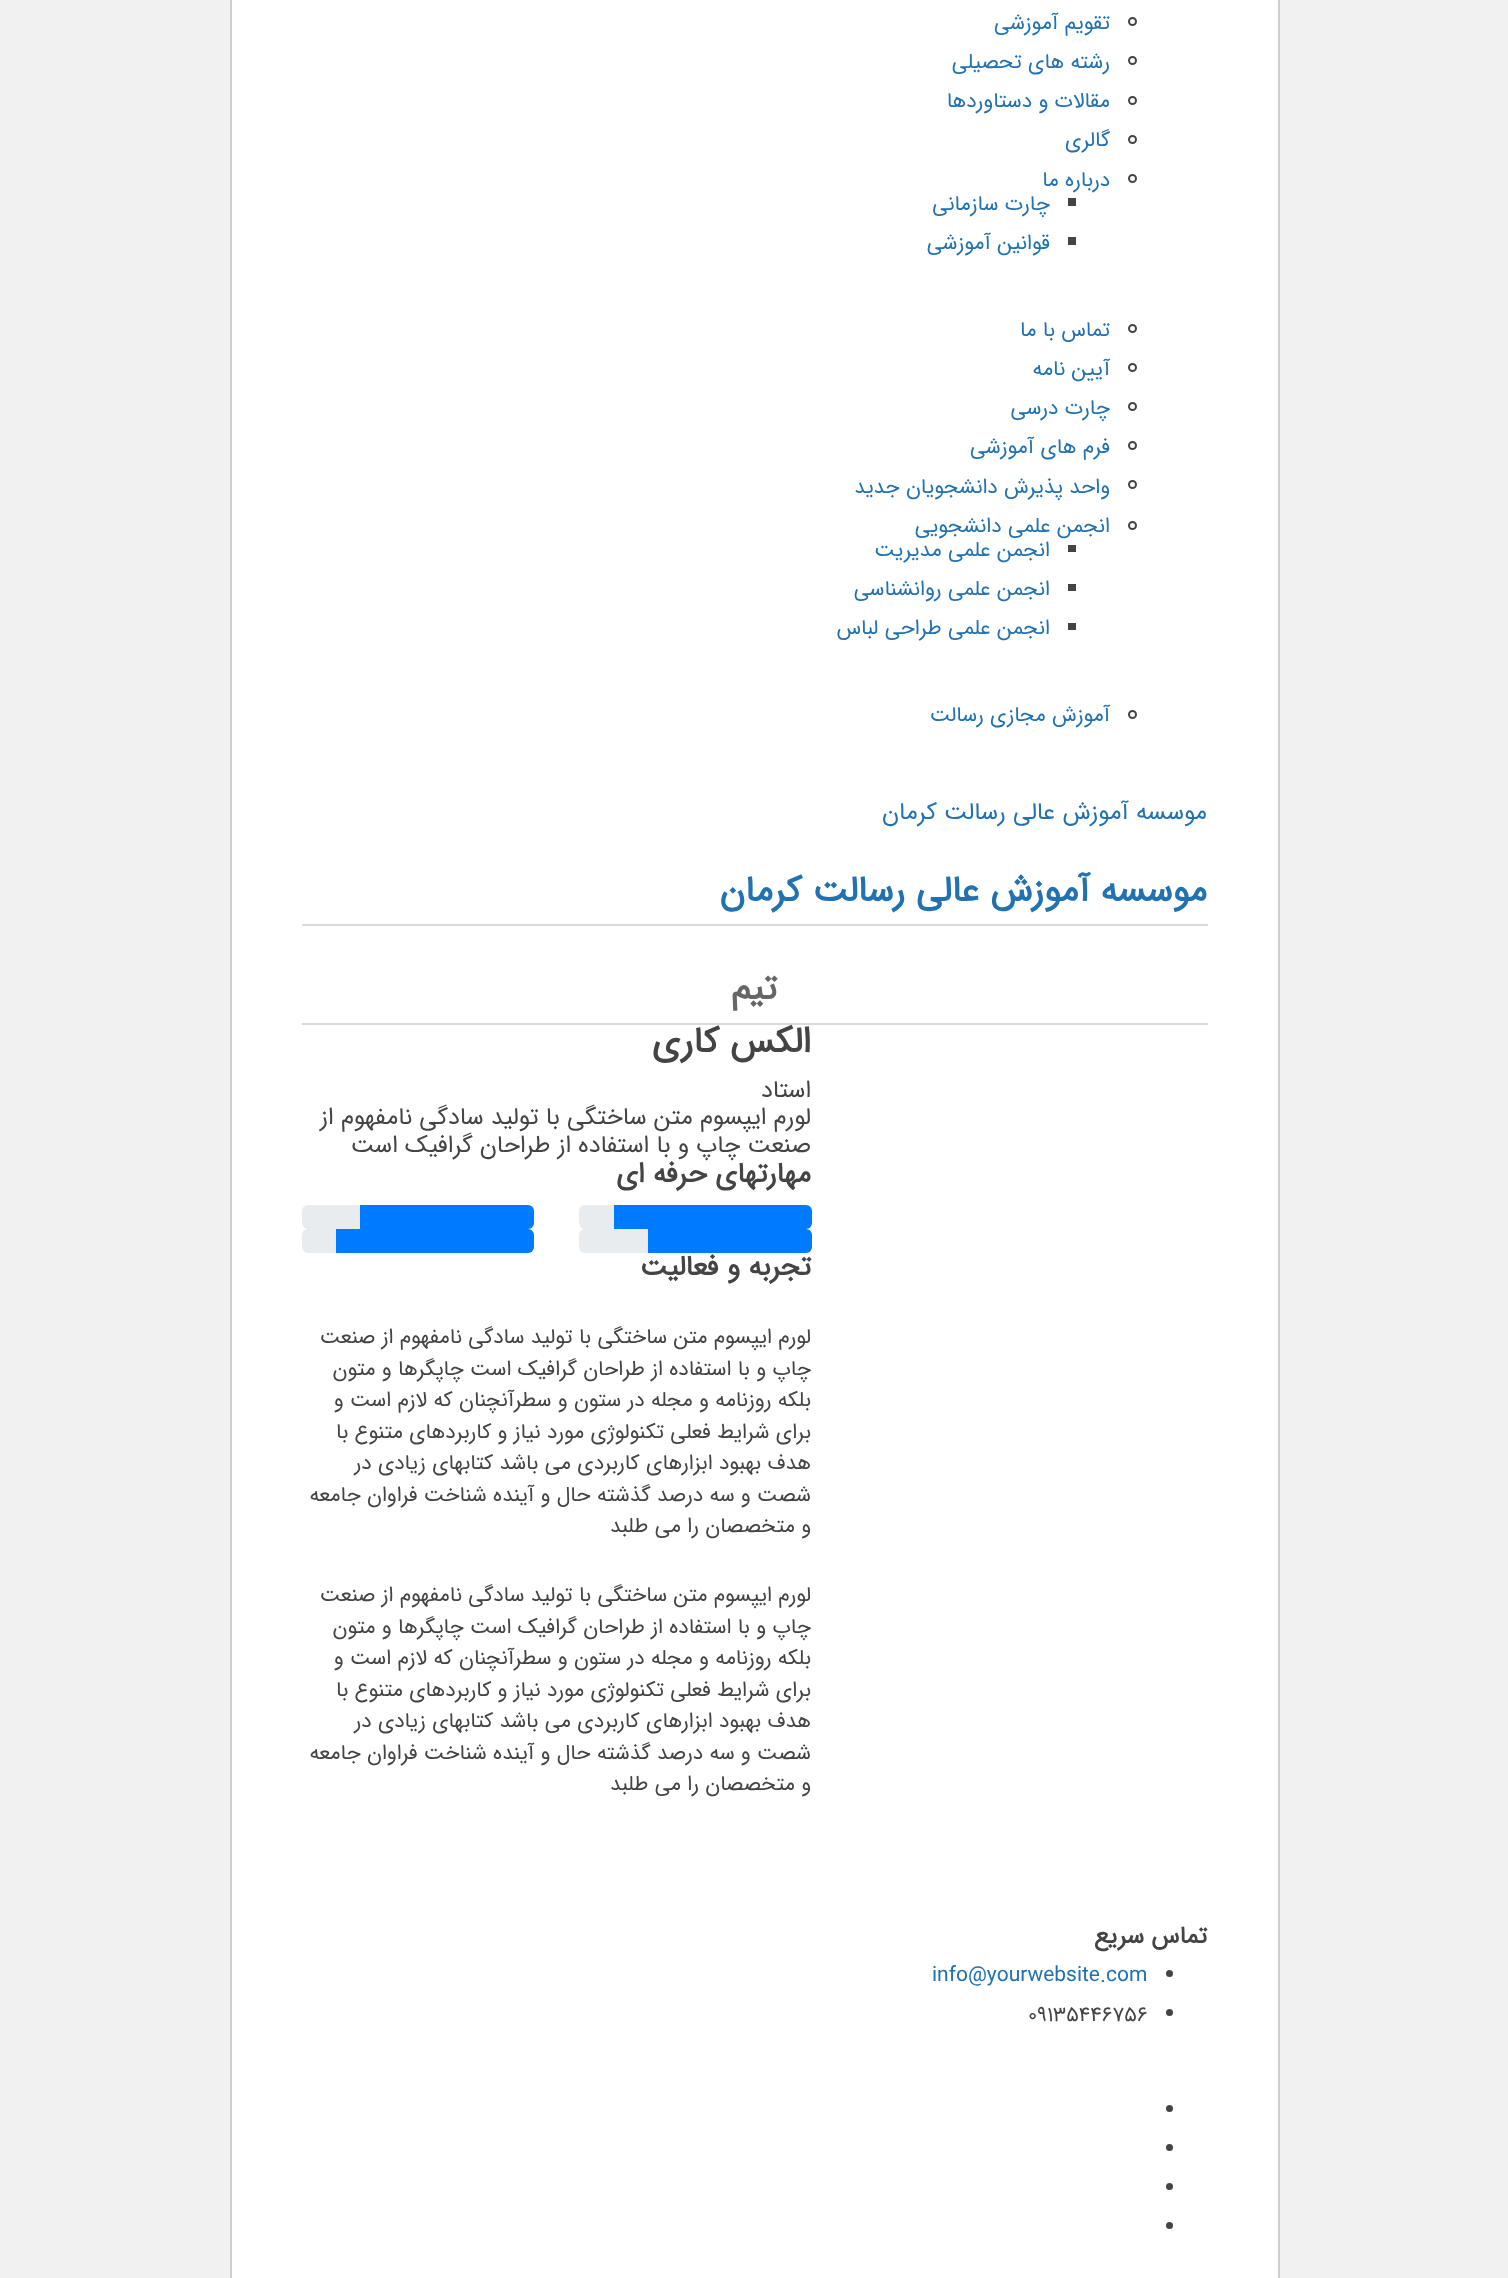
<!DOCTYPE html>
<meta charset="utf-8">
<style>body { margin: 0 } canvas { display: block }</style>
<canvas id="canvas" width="1508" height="2278"></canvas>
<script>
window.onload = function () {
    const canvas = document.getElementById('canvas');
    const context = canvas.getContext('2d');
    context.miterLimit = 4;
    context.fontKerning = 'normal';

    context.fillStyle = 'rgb(241, 241, 241)';
    context.fillRect(0, 0, 1508, 2278);
    context.fillStyle = 'rgb(255, 255, 255)';
    context.beginPath();
    context.rect(231, -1, 1048, 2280);
    context.fill();
    context.strokeStyle = 'rgb(204, 208, 212)';
    context.lineWidth = 2;
    context.stroke();
    context.beginPath();
    context.arc(1132.5, 21.5, 3.5, 0, 2 * Math.PI);
    context.strokeStyle = 'rgb(68, 68, 68)';
    context.stroke();
    context.beginPath();
    context.arc(1132.5, 60.5, 3.5, 0, 2 * Math.PI);
    context.stroke();
    context.beginPath();
    context.arc(1132.5, 100.5, 3.5, 0, 2 * Math.PI);
    context.stroke();
    context.beginPath();
    context.arc(1132.5, 139.5, 3.5, 0, 2 * Math.PI);
    context.stroke();
    context.beginPath();
    context.arc(1132.5, 178.5, 3.5, 0, 2 * Math.PI);
    context.stroke();
    context.fillStyle = 'rgb(68, 68, 68)';
    context.fillRect(1068, 198, 8, 8);
    context.fillRect(1068, 237, 8, 8);
    context.beginPath();
    context.arc(1132.5, 328.5, 3.5, 0, 2 * Math.PI);
    context.stroke();
    context.beginPath();
    context.arc(1132.5, 367.5, 3.5, 0, 2 * Math.PI);
    context.stroke();
    context.beginPath();
    context.arc(1132.5, 406.5, 3.5, 0, 2 * Math.PI);
    context.stroke();
    context.beginPath();
    context.arc(1132.5, 445.5, 3.5, 0, 2 * Math.PI);
    context.stroke();
    context.beginPath();
    context.arc(1132.5, 484.5, 3.5, 0, 2 * Math.PI);
    context.stroke();
    context.beginPath();
    context.arc(1132.5, 525.5, 3.5, 0, 2 * Math.PI);
    context.stroke();
    context.fillRect(1068, 545, 8, 7);
    context.fillRect(1068, 584, 8, 7);
    context.fillRect(1068, 623, 8, 7);
    context.beginPath();
    context.arc(1132.5, 714.5, 3.5, 0, 2 * Math.PI);
    context.stroke();
    context.fillStyle = 'rgb(218, 218, 218)';
    context.fillRect(302, 924, 906, 2);
    context.fillRect(302, 1023, 906, 2);
    context.fillStyle = 'rgb(233, 236, 239)';
    context.beginPath();
    context.roundRect(579, 1205, 233, 24, 6);
    context.fill();
    context.fillStyle = 'rgb(0, 123, 255)';
    context.beginPath();
    context.roundRect(614, 1205, 198, 24, [0, 6, 6, 0]);
    context.fill();
    context.fillStyle = 'rgb(233, 236, 239)';
    context.beginPath();
    context.roundRect(302, 1205, 232, 24, 6);
    context.fill();
    context.fillStyle = 'rgb(0, 123, 255)';
    context.beginPath();
    context.roundRect(360, 1205, 174, 24, [0, 6, 6, 0]);
    context.fill();
    context.fillStyle = 'rgb(233, 236, 239)';
    context.beginPath();
    context.roundRect(579, 1229, 233, 24, 6);
    context.fill();
    context.fillStyle = 'rgb(0, 123, 255)';
    context.beginPath();
    context.roundRect(648, 1229, 164, 24, [0, 6, 6, 0]);
    context.fill();
    context.fillStyle = 'rgb(233, 236, 239)';
    context.beginPath();
    context.roundRect(302, 1229, 232, 24, 6);
    context.fill();
    context.fillStyle = 'rgb(0, 123, 255)';
    context.beginPath();
    context.roundRect(336, 1229, 198, 24, [0, 6, 6, 0]);
    context.fill();
    context.fillStyle = 'rgb(68, 68, 68)';
    context.beginPath();
    context.arc(1169.5, 1973.5, 3.5, 0, 2 * Math.PI);
    context.fill();
    context.beginPath();
    context.arc(1169.5, 2012.5, 3.5, 0, 2 * Math.PI);
    context.fill();
    context.beginPath();
    context.arc(1169.5, 2108.5, 3.5, 0, 2 * Math.PI);
    context.fill();
    context.beginPath();
    context.arc(1169.5, 2147.5, 3.5, 0, 2 * Math.PI);
    context.fill();
    context.beginPath();
    context.arc(1169.5, 2186.5, 3.5, 0, 2 * Math.PI);
    context.fill();
    context.beginPath();
    context.arc(1169.5, 2225.5, 3.5, 0, 2 * Math.PI);
    context.fill();
    context.direction = 'rtl';
    context.font = '21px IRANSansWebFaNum';
    context.fillStyle = 'rgb(34, 113, 177)';
    context.fillText('تقویم آموزشی', 1110, 29);
    context.fillText('رشته های تحصیلی', 1110, 68);
    context.fillText('مقالات و دستاوردها', 1110, 107);
    context.fillText('گالری', 1110, 146);
    context.fillText('درباره ما', 1110, 186);
    context.fillText('چارت سازمانی', 1050, 210);
    context.fillText('قوانین آموزشی', 1050, 249);
    context.fillText('تماس با ما', 1110, 336);
    context.fillText('آیین نامه', 1110, 375);
    context.fillText('چارت درسی', 1110, 414);
    context.fillText('فرم های آموزشی', 1110, 453);
    context.fillText('واحد پذیرش دانشجویان جدید', 1110, 493);
    context.fillText('انجمن علمی دانشجویی', 1110, 532);
    context.fillText('انجمن علمی مدیریت', 1050, 556);
    context.fillText('انجمن علمی روانشناسی', 1050, 595);
    context.fillText('انجمن علمی طراحی لباس', 1050, 634);
    context.fillText('آموزش مجازی رسالت', 1110, 721);
    context.font = '24px IRANSansWebFaNum';
    context.fillText('موسسه آموزش عالی رسالت کرمان', 1207, 819);
    context.font = 'bold 36px IRANSansWebFaNum';
    context.fillText('موسسه آموزش عالی رسالت کرمان', 1207, 901);
    context.fillStyle = 'rgb(102, 102, 102)';
    context.fillText('تیم', 777, 999);
    context.fillStyle = 'rgb(68, 68, 68)';
    context.fillText('الکس کاری', 811, 1052);
    context.font = '24px IRANSansWebFaNum';
    context.fillText('استاد', 811, 1097);
    context.fillText('لورم ایپسوم متن ساختگی با تولید سادگی نامفهوم از', 811, 1124);
    context.fillText('صنعت چاپ و با استفاده از طراحان گرافیک است', 811, 1152);
    context.font = 'bold 28px IRANSansWebFaNum';
    context.fillText('مهارتهای حرفه ای', 811, 1182);
    context.fillText('تجربه و فعالیت', 811, 1275);
    context.font = '21px IRANSansWebFaNum';
    context.fillText('لورم ایپسوم متن ساختگی با تولید سادگی نامفهوم از صنعت', 811, 1343);
    context.fillText('چاپ و با استفاده از طراحان گرافیک است چاپگرها و متون', 811, 1375);
    context.fillText('بلکه روزنامه و مجله در ستون و سطرآنچنان که لازم است و', 811, 1406);
    context.fillText('برای شرایط فعلی تکنولوژی مورد نیاز و کاربردهای متنوع با', 811, 1438);
    context.fillText('هدف بهبود ابزارهای کاربردی می باشد کتابهای زیادی در', 811, 1469);
    context.fillText('شصت و سه درصد گذشته حال و آینده شناخت فراوان جامعه', 811, 1501);
    context.fillText('و متخصصان را می طلبد', 811, 1532);
    context.fillText('لورم ایپسوم متن ساختگی با تولید سادگی نامفهوم از صنعت', 811, 1601);
    context.fillText('چاپ و با استفاده از طراحان گرافیک است چاپگرها و متون', 811, 1633);
    context.fillText('بلکه روزنامه و مجله در ستون و سطرآنچنان که لازم است و', 811, 1664);
    context.fillText('برای شرایط فعلی تکنولوژی مورد نیاز و کاربردهای متنوع با', 811, 1696);
    context.fillText('هدف بهبود ابزارهای کاربردی می باشد کتابهای زیادی در', 811, 1727);
    context.fillText('شصت و سه درصد گذشته حال و آینده شناخت فراوان جامعه', 811, 1759);
    context.fillText('و متخصصان را می طلبد', 811, 1790);
    context.font = 'bold 24px IRANSansWebFaNum';
    context.fillText('تماس سریع', 1207, 1943);
    context.direction = 'ltr';
    context.font = '21px IRANSansWebFaNum';
    context.fillStyle = 'rgb(34, 113, 177)';
    context.fillText('info@yourwebsite.com', 932, 1981);
    context.fillStyle = 'rgb(68, 68, 68)';
    context.fillText('09135446756', 1028, 2021);
};
</script>
